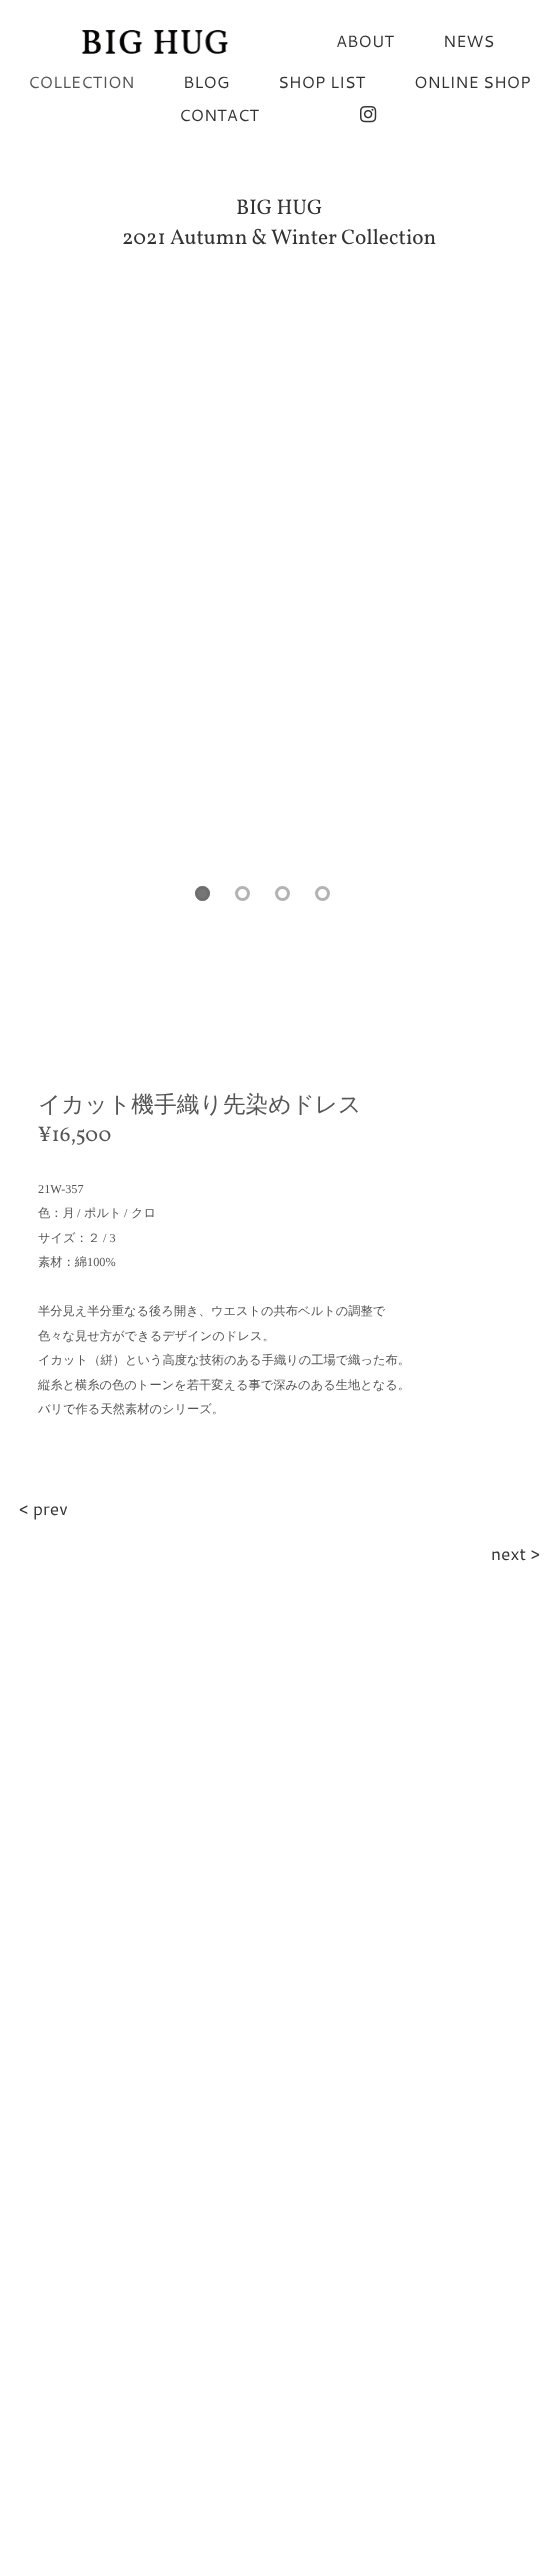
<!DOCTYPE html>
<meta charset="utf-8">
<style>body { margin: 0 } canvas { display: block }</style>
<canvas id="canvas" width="558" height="2575"></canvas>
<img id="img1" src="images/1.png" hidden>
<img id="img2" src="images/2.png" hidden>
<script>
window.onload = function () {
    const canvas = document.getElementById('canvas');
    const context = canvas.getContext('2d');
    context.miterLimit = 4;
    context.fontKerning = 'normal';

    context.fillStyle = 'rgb(255, 255, 255)';
    context.fillRect(0, 0, 558, 2575);
    context.drawImage(document.getElementById('img1'), 82, 30, 147, 24);
    context.drawImage(document.getElementById('img2'), 360, 106, 17, 17);
    context.beginPath();
    context.arc(202.5, 893.5, 6, 0, 2 * Math.PI);
    context.strokeStyle = 'rgb(179, 179, 179)';
    context.lineWidth = 3;
    context.stroke();
    context.fillStyle = 'rgba(102, 102, 102, 0.9)';
    context.beginPath();
    context.arc(202.5, 893.5, 7.5, 0, 2 * Math.PI);
    context.fill();
    context.beginPath();
    context.arc(242.5, 893.5, 6, 0, 2 * Math.PI);
    context.stroke();
    context.beginPath();
    context.arc(282.5, 893.5, 6, 0, 2 * Math.PI);
    context.stroke();
    context.beginPath();
    context.arc(322.5, 893.5, 6, 0, 2 * Math.PI);
    context.stroke();
    context.font = '16.25px Cantarell';
    context.fillStyle = 'rgb(51, 51, 51)';
    context.fillText('ABOUT', 336, 47);
    context.fillText('NEWS', 443, 47);
    context.fillStyle = 'rgb(85, 85, 85)';
    context.fillText('COLLECTION', 28, 88);
    context.fillStyle = 'rgb(51, 51, 51)';
    context.fillText('BLOG', 183, 88);
    context.fillText('SHOP LIST', 278, 88);
    context.fillText('ONLINE SHOP', 414, 88);
    context.fillText('CONTACT', 179, 121);
    context.font = '21.25px Vollkorn';
    context.fillText('BIG HUG', 236, 214);
    context.fillText('2021 Autumn & Winter Collection', 122, 244);
    context.font = '500 22.75px WenQuanYi Zen Hei';
    context.fillStyle = 'rgb(85, 85, 85)';
    context.fillText('イカット機手織り先染めドレス', 38, 1112);
    context.font = '21.25px Vollkorn';
    context.fillText('¥16,500', 38, 1141);
    context.font = '12.25px Liberation Serif';
    context.fillText('21W-357', 38, 1193);
    context.font = '500 12.25px WenQuanYi Zen Hei';
    context.fillText('色：月', 38, 1217);
    context.font = '12.25px Liberation Serif';
    context.fillText('/', 77, 1217);
    context.font = '500 12.25px WenQuanYi Zen Hei';
    context.fillText('ポルト', 84, 1217);
    context.font = '12.25px Liberation Serif';
    context.fillText('/', 124, 1217);
    context.font = '500 12.25px WenQuanYi Zen Hei';
    context.fillText('クロ', 131, 1217);
    context.fillText('サイズ：２', 38, 1242);
    context.font = '12.25px Liberation Serif';
    context.fillText('/ 3', 103, 1242);
    context.font = '500 12.25px WenQuanYi Zen Hei';
    context.fillText('素材：綿', 38, 1266);
    context.font = '12.25px Liberation Serif';
    context.fillText('100%', 87, 1266);
    context.font = '500 12.25px WenQuanYi Zen Hei';
    context.fillText('半分見え半分重なる後ろ開き、ウエストの共布ベルトの調整で', 38, 1315);
    context.fillText('色々な見せ方ができるデザインのドレス。', 38, 1340);
    context.fillText('イカット（絣）という高度な技術のある手織りの工場で織った布。', 38, 1364);
    context.fillText('縦糸と横糸の色のトーンを若干変える事で深みのある生地となる。', 38, 1389);
    context.fillText('バリで作る天然素材のシリーズ。', 38, 1413);
    context.font = '17.5px Cantarell';
    context.fillStyle = 'rgb(51, 51, 51)';
    context.fillText('< prev', 19, 1515);
    context.fillText('next >', 491, 1560);
};
</script>
